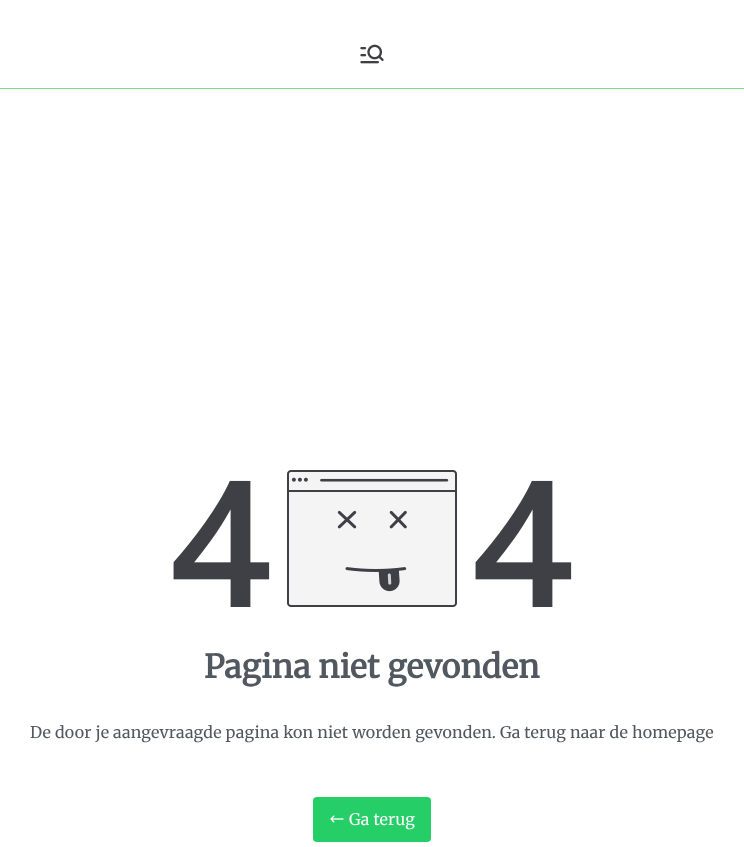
<!DOCTYPE html>
<meta charset="utf-8">
<style>body { margin: 0 } canvas { display: block }</style>
<canvas id="canvas" width="744" height="847"></canvas>
<img id="img1" src="images/1.png" hidden>
<img id="img2" src="images/2.png" hidden>
<img id="img3" src="images/3.png" hidden>
<script>
window.onload = function () {
    const canvas = document.getElementById('canvas');
    const context = canvas.getContext('2d');
    context.miterLimit = 4;
    context.fontKerning = 'normal';

    context.fillStyle = 'rgb(128, 217, 135)';
    context.fillRect(0, 0, 744, 847);
    context.fillStyle = 'rgb(255, 255, 255)';
    context.fillRect(0, 0, 744, 88);
    context.drawImage(document.getElementById('img1'), 360, 44, 24, 20);
    context.fillRect(0, 89, 744, 758);
    context.drawImage(document.getElementById('img2'), 173, 470, 399, 137);
    context.fillStyle = 'rgb(37, 206, 102)';
    context.beginPath();
    context.roundRect(313, 797, 118, 45, 4);
    context.fill();
    context.drawImage(document.getElementById('img3'), 330, 815, 14, 8);
    context.letterSpacing = '0.15px';
    context.font = 'bold 32px Merriweather';
    context.fillStyle = 'rgb(81, 88, 95)';
    context.fillText('Pagina niet gevonden', 204, 678);
    context.font = '300 16px Merriweather';
    context.fillText('De door je aangevraagde pagina kon niet worden gevonden. Ga terug naar de homepage', 30, 738);
    context.fillStyle = 'rgb(250, 250, 250)';
    context.fillText('Ga terug', 349, 825);
};
</script>
